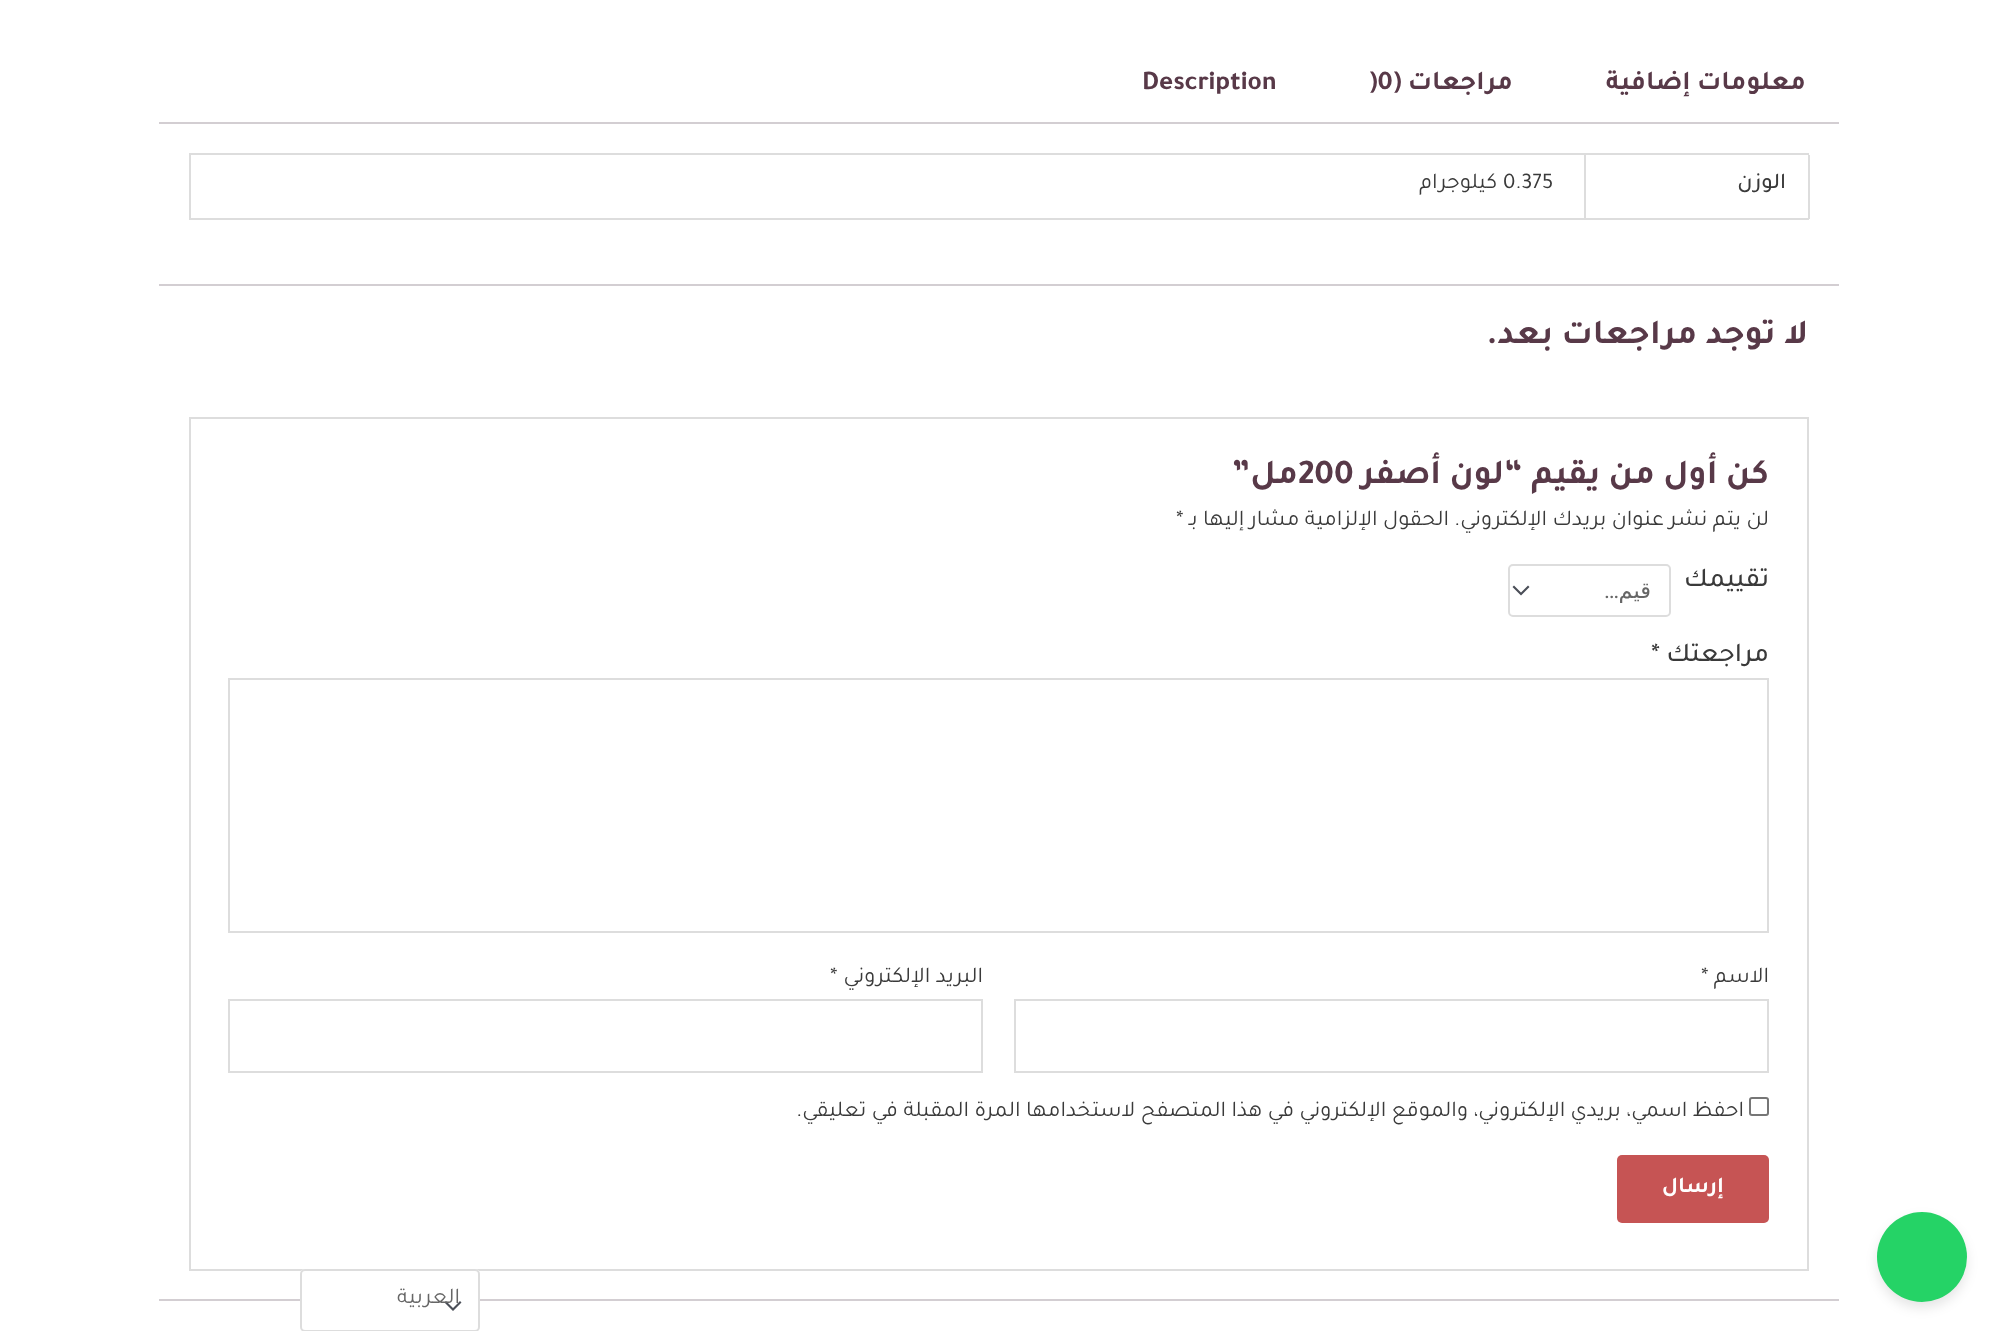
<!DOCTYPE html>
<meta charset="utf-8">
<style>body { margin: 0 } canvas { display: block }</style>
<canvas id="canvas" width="1996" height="1331"></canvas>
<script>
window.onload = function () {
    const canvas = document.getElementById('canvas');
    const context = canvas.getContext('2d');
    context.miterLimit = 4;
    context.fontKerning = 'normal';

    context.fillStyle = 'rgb(255, 255, 255)';
    context.fillRect(0, 0, 1996, 1331);
    context.fillStyle = 'rgba(0, 0, 0, 0.1)';
    context.filter = 'blur(6px)';
    context.beginPath();
    context.roundRect(1877, 1218, 90, 90, 45);
    context.fill();
    context.filter = 'none';
    context.fillStyle = 'rgb(37, 211, 102)';
    context.beginPath();
    context.arc(1922, 1257, 45, 0, 2 * Math.PI);
    context.fill();
    context.fillStyle = 'rgb(211, 206, 210)';
    context.fillRect(159, 122, 1680, 2);
    context.fillStyle = 'rgb(221, 221, 221)';
    context.fillRect(189, 153, 1620, 2);
    context.fillRect(1808, 155, 2, 64);
    context.fillRect(189, 218, 1620, 2);
    context.fillRect(1584, 155, 2, 64);
    context.fillRect(189, 155, 2, 64);
    context.fillStyle = 'rgb(211, 206, 210)';
    context.fillRect(159, 284, 1680, 2);
    context.strokeStyle = 'rgb(221, 221, 221)';
    context.lineWidth = 2;
    context.strokeRect(190, 418, 1618, 852);
    context.fillStyle = 'rgb(75, 79, 88)';
    context.beginPath();
    context.moveTo(1512.5, 587);
    context.lineTo(1521, 595.5);
    context.lineTo(1529.5, 587);
    context.lineTo(1528, 585.5);
    context.lineTo(1521, 592.5);
    context.lineTo(1514, 585.5);
    context.closePath();
    context.fill();
    context.beginPath();
    context.roundRect(1509, 565, 161, 51, 4);
    context.stroke();
    context.strokeRect(229, 679, 1539, 253);
    context.strokeRect(1015, 1000, 753, 72);
    context.strokeRect(229, 1000, 753, 72);
    context.beginPath();
    context.roundRect(1750, 1098, 18, 17, 2);
    context.strokeStyle = 'rgb(118, 118, 118)';
    context.stroke();
    context.fillStyle = 'rgb(198, 84, 84)';
    context.beginPath();
    context.roundRect(1617, 1155, 152, 68, 5);
    context.fill();
    context.fillStyle = 'rgb(211, 206, 210)';
    context.fillRect(159, 1299, 1680, 2);
    context.fillStyle = 'rgb(255, 255, 255)';
    context.beginPath();
    context.roundRect(300, 1269, 180, 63, 5);
    context.fill();
    context.fillStyle = 'rgb(75, 79, 88)';
    context.beginPath();
    context.moveTo(444.5, 1302.5);
    context.lineTo(453, 1311);
    context.lineTo(461.5, 1302.5);
    context.lineTo(460, 1301);
    context.lineTo(453, 1308);
    context.lineTo(446, 1301);
    context.closePath();
    context.fill();
    context.beginPath();
    context.roundRect(301, 1270, 178, 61, 4);
    context.strokeStyle = 'rgb(221, 221, 221)';
    context.stroke();
    context.direction = 'rtl';
    context.font = 'bold 27px Tajawal';
    context.fillStyle = 'rgb(88, 57, 72)';
    context.fillText('معلومات إضافية', 1806, 89);
    context.fillText('مراجعات (', 1513, 89);
    context.direction = 'ltr';
    context.fillText(')0', 1369, 89);
    context.fillText('Description', 1142, 89);
    context.direction = 'rtl';
    context.font = '500 22.5px Tajawal';
    context.fillStyle = 'rgb(58, 58, 58)';
    context.fillText('الوزن', 1786, 188);
    context.direction = 'ltr';
    context.font = '22.5px Tajawal';
    context.fillText('0.375', 1503, 188);
    context.direction = 'rtl';
    context.fillText('كيلوجرام', 1497, 188);
    context.font = 'bold 34.9px Tajawal';
    context.fillStyle = 'rgb(88, 57, 72)';
    context.fillText('لا توجد مراجعات بعد.', 1808, 343);
    context.fillText('كن أول من يقيم “لون أصفر', 1769, 483);
    context.direction = 'ltr';
    context.fillText('200', 1298, 483);
    context.direction = 'rtl';
    context.fillText('مل”', 1298, 483);
    context.font = '22.5px Tajawal';
    context.fillStyle = 'rgb(58, 58, 58)';
    context.fillText('لن يتم نشر عنوان بريدك الإلكتروني.', 1769, 525);
    context.fillText('الحقول الإلزامية مشار إليها بـ', 1449, 525);
    context.direction = 'ltr';
    context.fillText('*', 1176, 525);
    context.direction = 'rtl';
    context.font = '500 27px Tajawal';
    context.fillText('تقييمك', 1769, 586);
    context.save();
    context.beginPath();
    context.rect(1554, 576, 98, 27);
    context.clip();
    context.font = '22.5px DejaVu Sans';
    context.fillStyle = 'rgb(102, 102, 102)';
    context.fillText('قيم', 1651, 598);
    context.restore();
    context.font = '22.5px Roboto';
    context.fillStyle = 'rgb(102, 102, 102)';
    context.fillText('…', 1619, 598);
    context.font = '500 27px Tajawal';
    context.fillStyle = 'rgb(58, 58, 58)';
    context.fillText('مراجعتك', 1769, 661);
    context.direction = 'ltr';
    context.fillText('*', 1651, 661);
    context.direction = 'rtl';
    context.font = '22.5px Tajawal';
    context.fillText('الاسم', 1769, 982);
    context.direction = 'ltr';
    context.fillText('*', 1701, 982);
    context.direction = 'rtl';
    context.fillText('البريد الإلكتروني', 983, 982);
    context.direction = 'ltr';
    context.fillText('*', 830, 982);
    context.direction = 'rtl';
    context.fillText('احفظ اسمي، بريدي الإلكتروني، والموقع الإلكتروني في هذا المتصفح لاستخدامها المرة المقبلة في تعليقي.', 1744, 1116);
    context.font = 'bold 22.5px Tajawal';
    context.fillStyle = 'rgb(255, 255, 255)';
    context.fillText('إرسال', 1724, 1192);
    context.font = '22.5px Tajawal';
    context.fillStyle = 'rgb(102, 102, 102)';
    context.fillText('العربية', 460, 1303);
};
</script>
